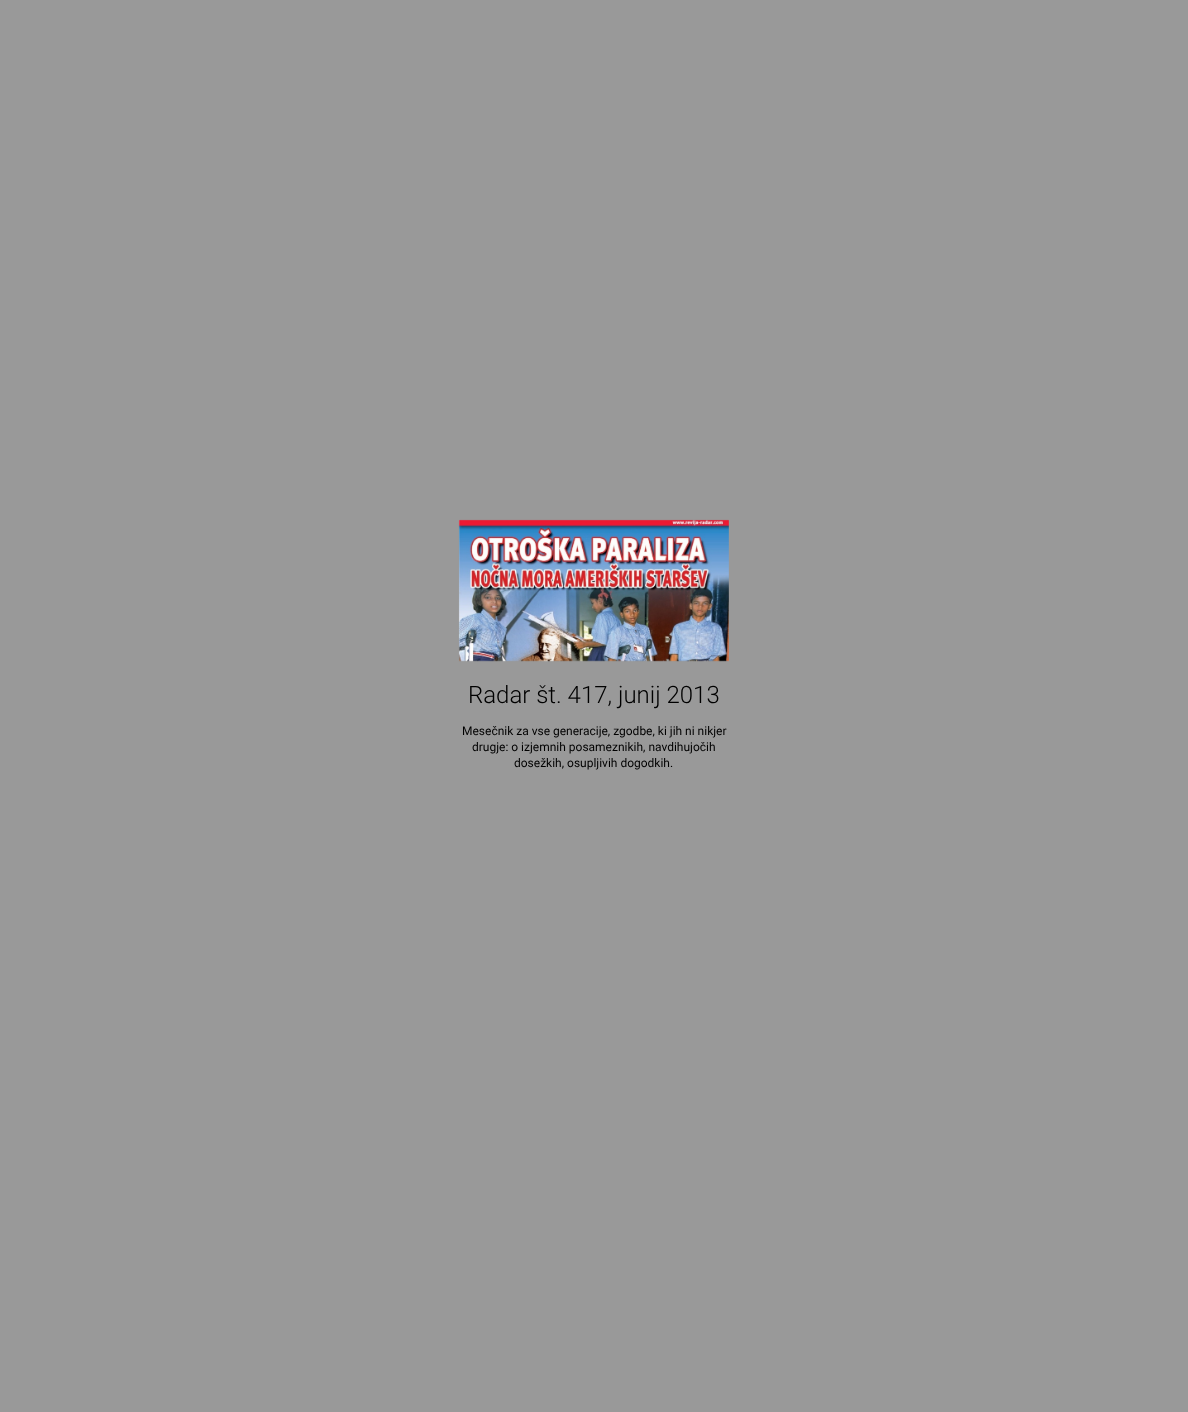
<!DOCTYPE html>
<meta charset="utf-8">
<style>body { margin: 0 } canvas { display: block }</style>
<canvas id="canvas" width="1188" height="1412"></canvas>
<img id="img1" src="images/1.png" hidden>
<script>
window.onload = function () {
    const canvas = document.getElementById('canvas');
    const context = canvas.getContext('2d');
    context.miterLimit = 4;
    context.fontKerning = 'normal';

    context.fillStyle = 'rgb(153, 153, 153)';
    context.fillRect(0, 0, 1188, 1412);
    context.drawImage(document.getElementById('img1'), 458, 519, 271, 143);
    context.font = '300 24px Roboto';
    context.fillStyle = 'rgb(0, 0, 0)';
    context.fillText('Radar št. 417, junij 2013', 468, 703);
    context.font = '12px Roboto';
    context.fillText('Mesečnik za vse generacije, zgodbe, ki jih ni nikjer', 462, 735);
    context.fillText('drugje: o izjemnih posameznikih, navdihujočih', 472, 751);
    context.fillText('dosežkih, osupljivih dogodkih.', 514, 767);
};
</script>
